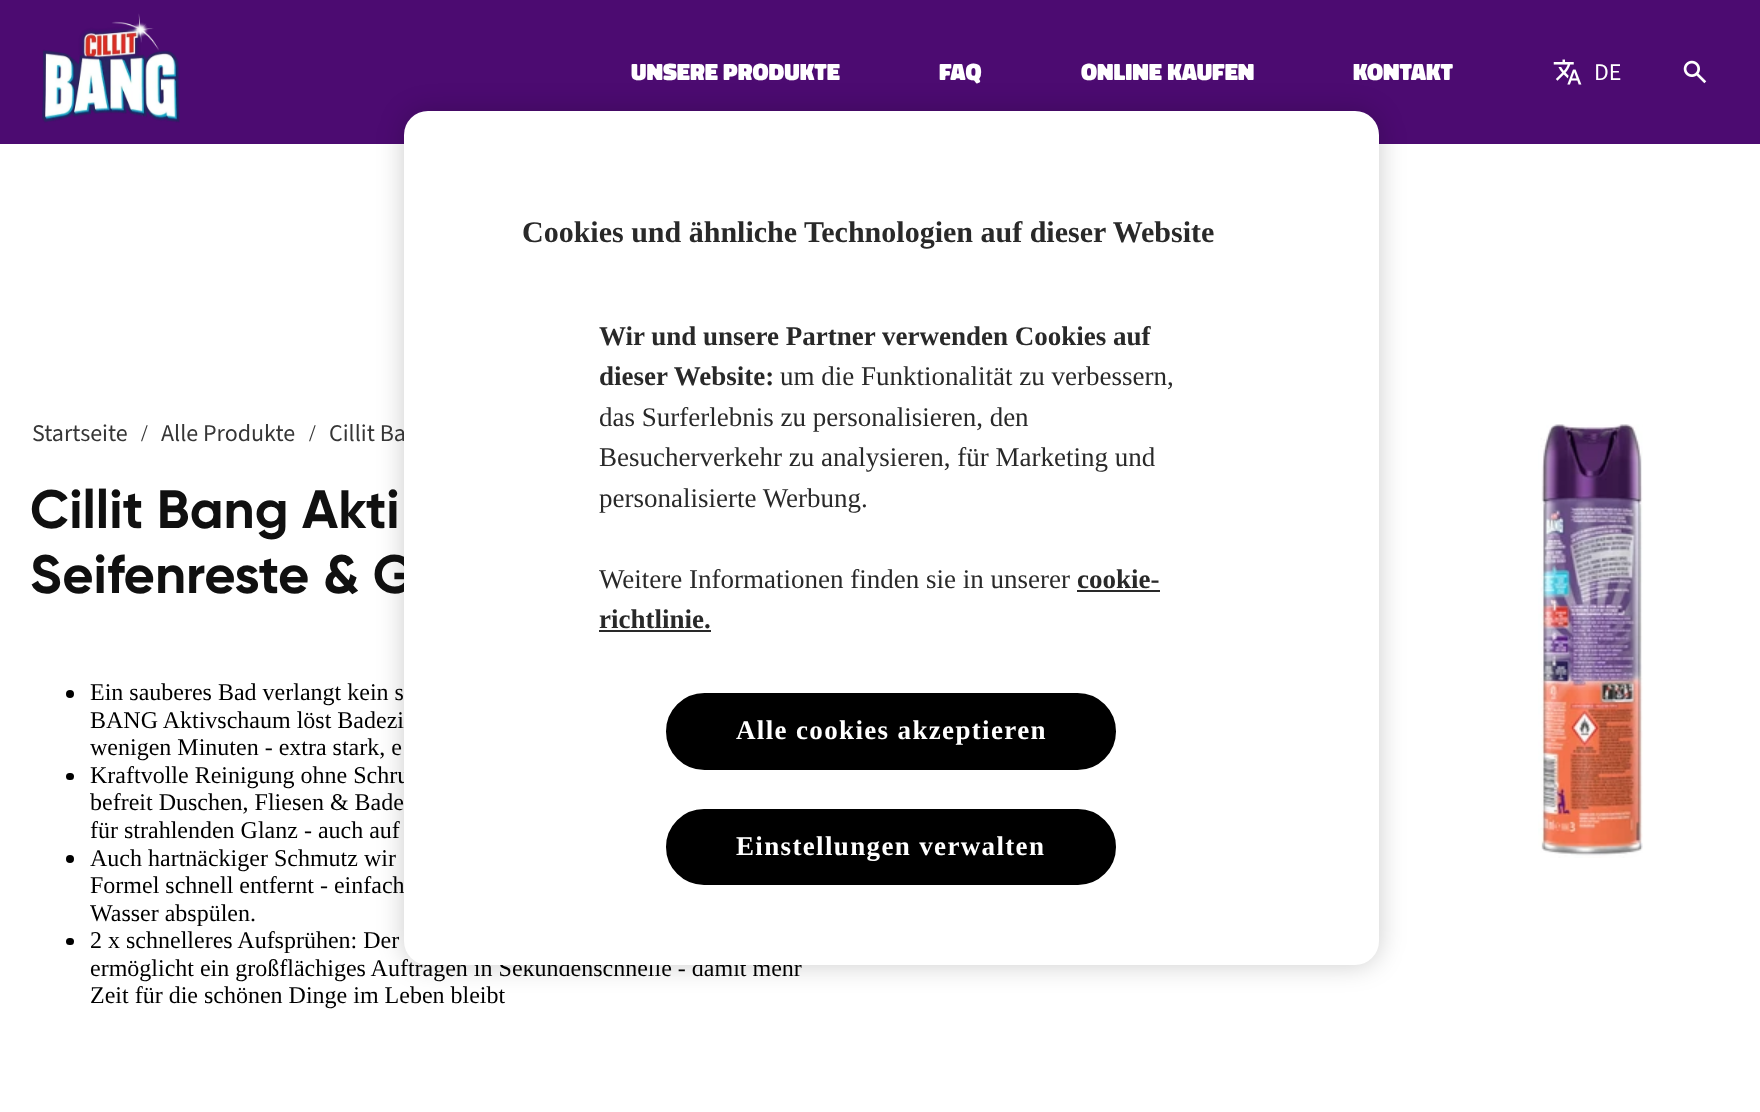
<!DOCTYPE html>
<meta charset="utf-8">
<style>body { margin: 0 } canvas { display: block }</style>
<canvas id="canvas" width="1760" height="1112"></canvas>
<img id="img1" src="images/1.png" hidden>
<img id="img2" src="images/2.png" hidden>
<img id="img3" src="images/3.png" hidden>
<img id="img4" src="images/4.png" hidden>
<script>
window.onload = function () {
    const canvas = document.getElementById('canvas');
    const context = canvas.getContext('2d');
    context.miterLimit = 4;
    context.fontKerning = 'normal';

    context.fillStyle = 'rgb(255, 255, 255)';
    context.fillRect(0, 0, 1760, 1112);
    context.fillStyle = 'rgb(76, 11, 113)';
    context.fillRect(0, 0, 1760, 144);
    context.drawImage(document.getElementById('img1'), 42, 13, 138, 110);
    context.drawImage(document.getElementById('img2'), 1553, 59, 29, 26);
    context.drawImage(document.getElementById('img3'), 1683, 60, 24, 24);
    context.fillStyle = 'rgb(0, 0, 0)';
    context.beginPath();
    context.arc(70, 694, 4, 0, 2 * Math.PI);
    context.fill();
    context.beginPath();
    context.roundRect(66, 773, 8, 7, 3.5);
    context.fill();
    context.beginPath();
    context.arc(70, 859, 4, 0, 2 * Math.PI);
    context.fill();
    context.beginPath();
    context.roundRect(66, 938, 8, 7, 3.5);
    context.fill();
    context.drawImage(document.getElementById('img4'), 1538, 424, 105, 434);
    context.fillStyle = 'rgba(0, 0, 0, 0.2)';
    context.filter = 'blur(13.5px)';
    context.beginPath();
    context.roundRect(404, 111, 975, 854, 24);
    context.fill();
    context.filter = 'none';
    context.font = '900 24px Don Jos';
    context.fillStyle = 'rgb(255, 255, 255)';
    context.fillText('UNSERE PRODUKTE', 631, 80);
    context.fillText('FAQ', 939, 80);
    context.fillText('ONLINE KAUFEN', 1081, 80);
    context.fillText('KONTAKT', 1353, 80);
    context.font = '24px "Source Sans 3"';
    context.fillText('DE', 1594, 80);
    context.fillStyle = 'rgb(54, 54, 54)';
    context.fillText('Startseite', 32, 441);
    context.font = '24px Liberation Serif';
    context.fillText('/', 141, 441);
    context.font = '24px "Source Sans 3"';
    context.fillText('Alle Produkte', 161, 441);
    context.font = '24px Liberation Serif';
    context.fillText('/', 309, 441);
    context.font = '24px "Source Sans 3"';
    context.fillText('Cillit Ba', 329, 441);
    context.font = 'bold 54px Gilroy';
    context.fillStyle = 'rgb(16, 16, 16)';
    context.fillText('Cillit Bang Akti', 30, 528);
    context.fillText('Seifenreste & G', 30, 593);
    context.font = '24px Liberation Serif';
    context.fillStyle = 'rgb(0, 0, 0)';
    context.fillText('Ein sauberes Bad verlangt kein s', 90, 700);
    context.fillText('BANG Aktivschaum löst Badezi', 90, 728);
    context.fillText('wenigen Minuten - extra stark, e', 90, 755);
    context.fillText('Kraftvolle Reinigung ohne Schru', 90, 783);
    context.fillText('befreit Duschen, Fliesen & Bade', 90, 810);
    context.fillText('für strahlenden Glanz - auch auf', 90, 838);
    context.fillText('Auch hartnäckiger Schmutz wir', 90, 866);
    context.fillText('Formel schnell entfernt - einfach', 90, 893);
    context.fillText('Wasser abspülen.', 90, 921);
    context.fillText('2 x schnelleres Aufsprühen: Der', 90, 948);
    context.fillText('ermöglicht ein großflächiges Auftragen in Sekundenschnelle - damit mehr', 90, 976);
    context.fillText('Zeit für die schönen Dinge im Leben bleibt', 90, 1003);
    context.fillStyle = 'rgb(255, 255, 255)';
    context.beginPath();
    context.roundRect(404, 111, 975, 854, 24);
    context.fill();
    context.font = 'bold 30px Liberation Serif';
    context.fillStyle = 'rgb(41, 41, 41)';
    context.fillText('Cookies und ähnliche Technologien auf dieser Website', 522, 242);
    context.font = 'bold 27px Liberation Serif';
    context.fillText('Wir und unsere Partner verwenden Cookies auf', 599, 345);
    context.fillText('dieser Website:', 599, 385);
    context.font = '27px Liberation Serif';
    context.fillText('um die Funktionalität zu verbessern,', 780, 385);
    context.fillText('das Surferlebnis zu personalisieren, den', 599, 426);
    context.fillText('Besucherverkehr zu analysieren, für Marketing und', 599, 466);
    context.fillText('personalisierte Werbung.', 599, 507);
    context.fillText('Weitere Informationen finden sie in unserer', 599, 588);
    context.font = 'bold 27px Liberation Serif';
    context.fillText('cookie-', 1077, 588);
    context.fillRect(1077, 590, 83, 2);
    context.fillText('richtlinie.', 599, 628);
    context.fillRect(599, 630, 112, 2);
    context.fillStyle = 'rgb(0, 0, 0)';
    context.beginPath();
    context.roundRect(667, 694, 448, 75, 37.5);
    context.fill();
    context.strokeStyle = 'rgb(0, 0, 0)';
    context.lineWidth = 2;
    context.stroke();
    context.letterSpacing = '1.35px';
    context.fillStyle = 'rgb(255, 255, 255)';
    context.fillText('Alle cookies akzeptieren', 736, 739);
    context.fillStyle = 'rgb(0, 0, 0)';
    context.beginPath();
    context.roundRect(667, 810, 448, 74, 37);
    context.fill();
    context.stroke();
    context.fillStyle = 'rgb(255, 255, 255)';
    context.fillText('Einstellungen verwalten', 736, 855);
};
</script>
